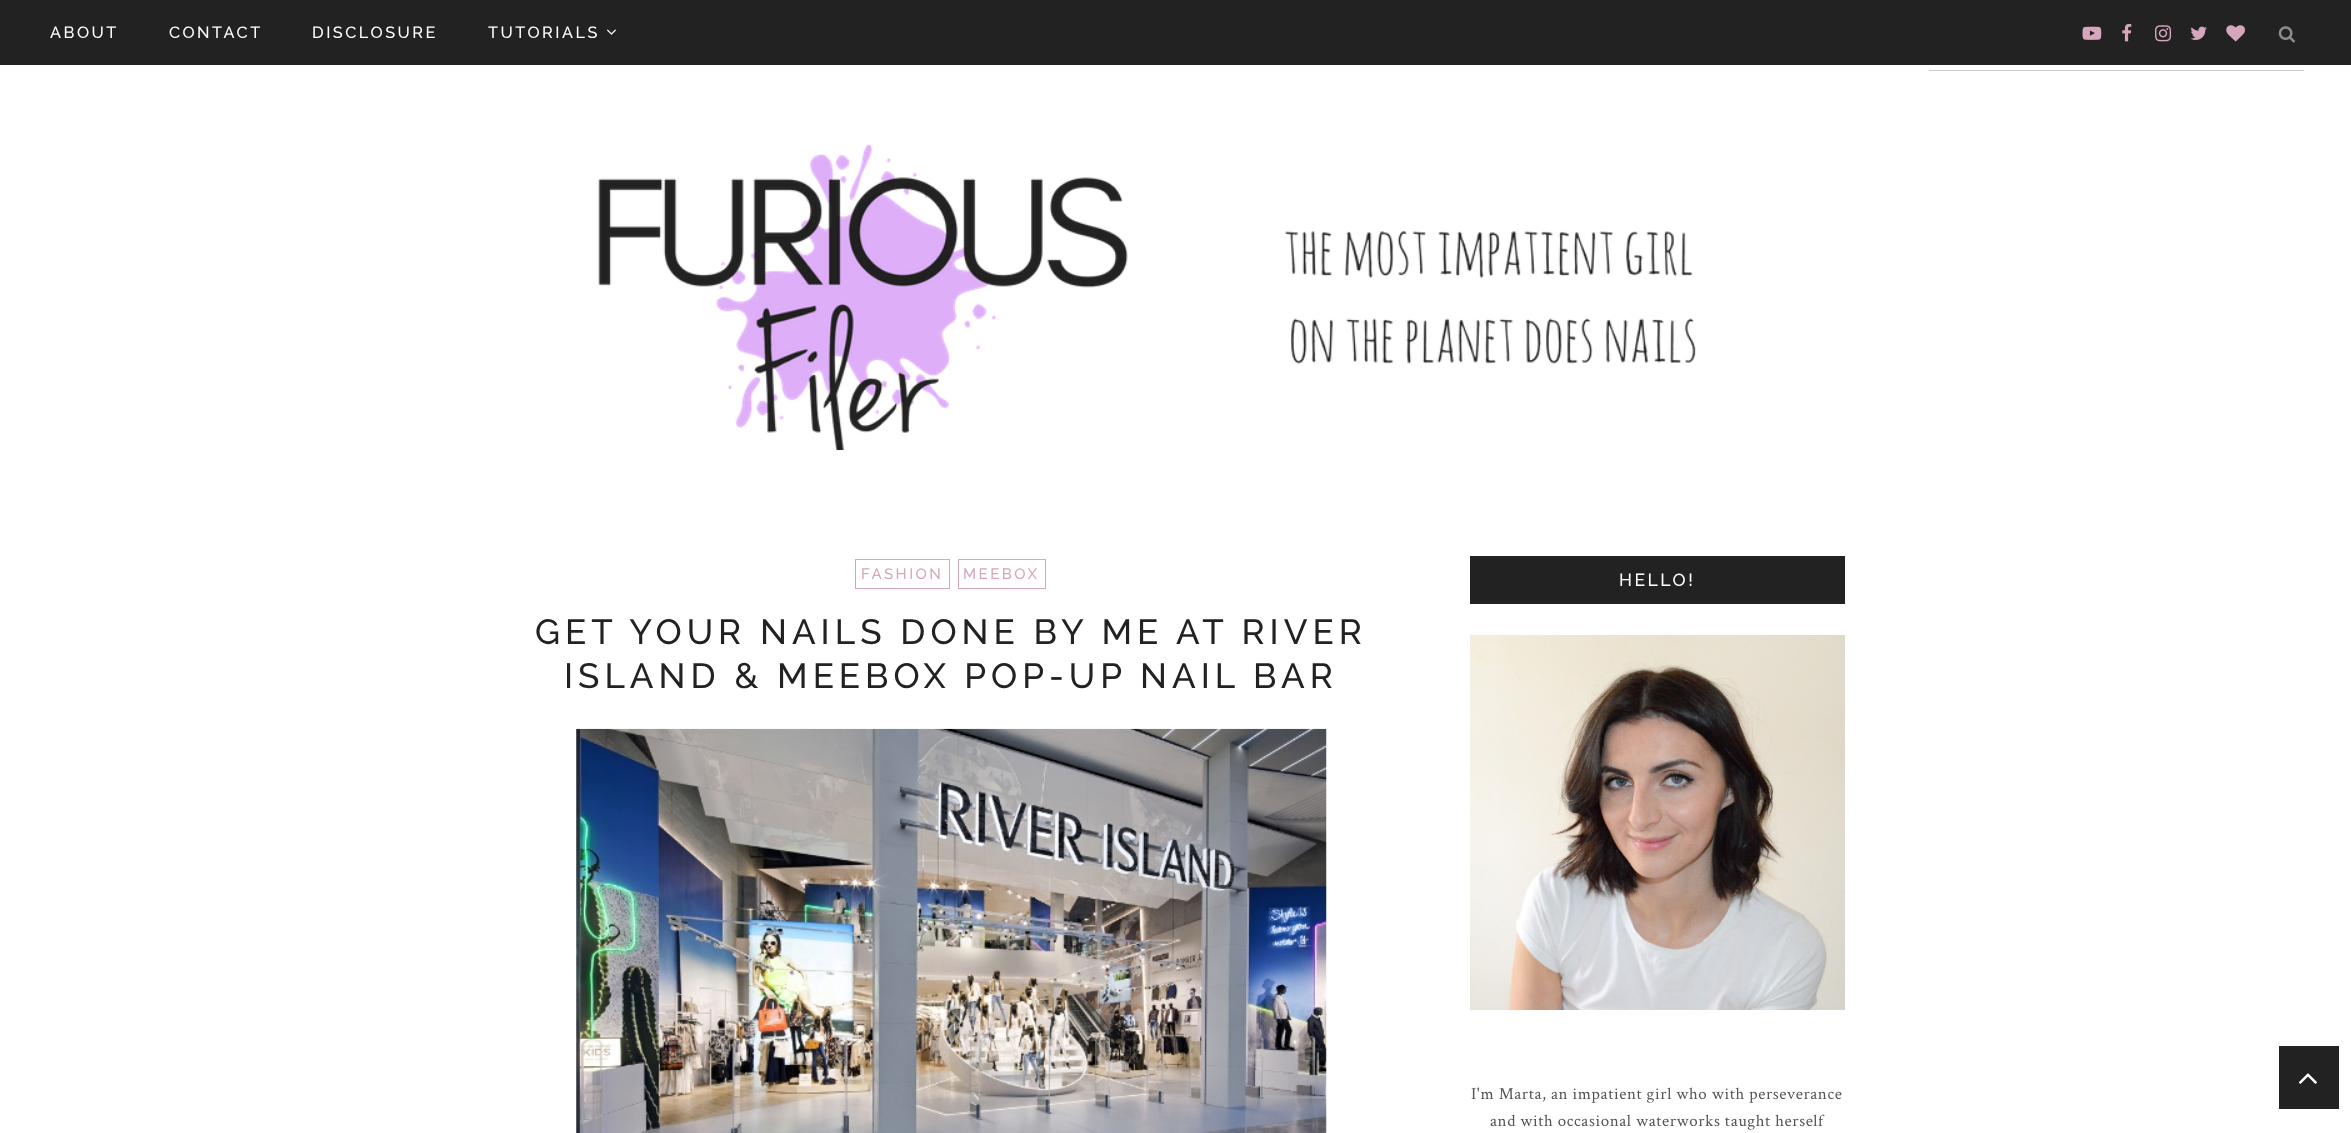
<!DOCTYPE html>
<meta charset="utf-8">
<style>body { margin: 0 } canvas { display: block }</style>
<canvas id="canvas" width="2351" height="1133"></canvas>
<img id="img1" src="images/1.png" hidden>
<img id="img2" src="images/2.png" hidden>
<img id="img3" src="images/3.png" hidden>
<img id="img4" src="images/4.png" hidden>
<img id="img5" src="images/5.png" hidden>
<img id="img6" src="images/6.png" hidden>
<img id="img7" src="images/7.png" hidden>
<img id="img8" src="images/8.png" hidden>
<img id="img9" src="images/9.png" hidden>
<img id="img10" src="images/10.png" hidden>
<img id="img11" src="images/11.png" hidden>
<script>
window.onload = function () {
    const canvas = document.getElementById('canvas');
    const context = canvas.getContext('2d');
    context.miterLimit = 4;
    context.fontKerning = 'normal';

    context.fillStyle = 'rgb(255, 255, 255)';
    context.fillRect(0, 0, 2351, 1133);
    context.fillStyle = 'rgb(34, 34, 34)';
    context.fillRect(0, 0, 2351, 65);
    context.drawImage(document.getElementById('img1'), 607, 29, 9, 6);
    context.drawImage(document.getElementById('img2'), 2082, 26, 20, 14);
    context.drawImage(document.getElementById('img3'), 2122, 23, 10, 19);
    context.drawImage(document.getElementById('img4'), 2155, 25, 17, 17);
    context.drawImage(document.getElementById('img5'), 2190, 26, 17, 14);
    context.drawImage(document.getElementById('img6'), 2226, 25, 19, 17);
    context.save();
    context.beginPath();
    context.rect(1929, 68, 375, 3);
    context.clip();
    context.strokeStyle = 'rgb(204, 204, 204)';
    context.strokeRect(1929.5, 70.5, 374, 45);
    context.restore();
    context.drawImage(document.getElementById('img7'), 2278, 26, 17, 17);
    context.drawImage(document.getElementById('img8'), 598, 143, 1098, 307);
    context.strokeStyle = 'rgb(213, 166, 189)';
    context.strokeRect(855.5, 559.5, 94, 29);
    context.strokeRect(958.5, 559.5, 87, 29);
    context.drawImage(document.getElementById('img9'), 576, 728, 751, 405);
    context.fillRect(1470, 556, 375, 48);
    context.drawImage(document.getElementById('img10'), 1470, 635, 375, 375);
    context.fillRect(2279, 1046, 60, 63);
    context.drawImage(document.getElementById('img11'), 2298, 1073, 19, 11);
    context.letterSpacing = '2.5px';
    context.font = '500 16.25px Raleway';
    context.fillStyle = 'rgb(255, 255, 255)';
    context.fillText('ABOUT', 50, 38);
    context.fillText('CONTACT', 169, 38);
    context.fillText('DISCLOSURE', 312, 38);
    context.fillText('TUTORIALS', 488, 38);
    context.font = '500 15px Raleway';
    context.fillStyle = 'rgb(213, 166, 189)';
    context.fillText('FASHION', 861, 579);
    context.fillText('MEEBOX', 963, 579);
    context.letterSpacing = '5px';
    context.font = '500 35px Raleway';
    context.fillStyle = 'rgb(34, 34, 34)';
    context.fillText('GET YOUR NAILS DONE BY ME AT RIVER', 535, 644);
    context.fillText('ISLAND & MEEBOX POP-UP NAIL BAR', 564, 688);
    context.letterSpacing = '2.5px';
    context.font = '500 17.5px Raleway';
    context.fillStyle = 'rgb(255, 255, 255)';
    context.fillText('HELLO!', 1619, 586);
    context.letterSpacing = '0.6px';
    context.font = '16.9px Crimson Text';
    context.fillStyle = 'rgb(84, 84, 84)';
    context.fillText('I\'m Marta, an impatient girl who with perseverance', 1471, 1099);
    context.fillText('and with occasional waterworks taught herself', 1490, 1126);
};
</script>
